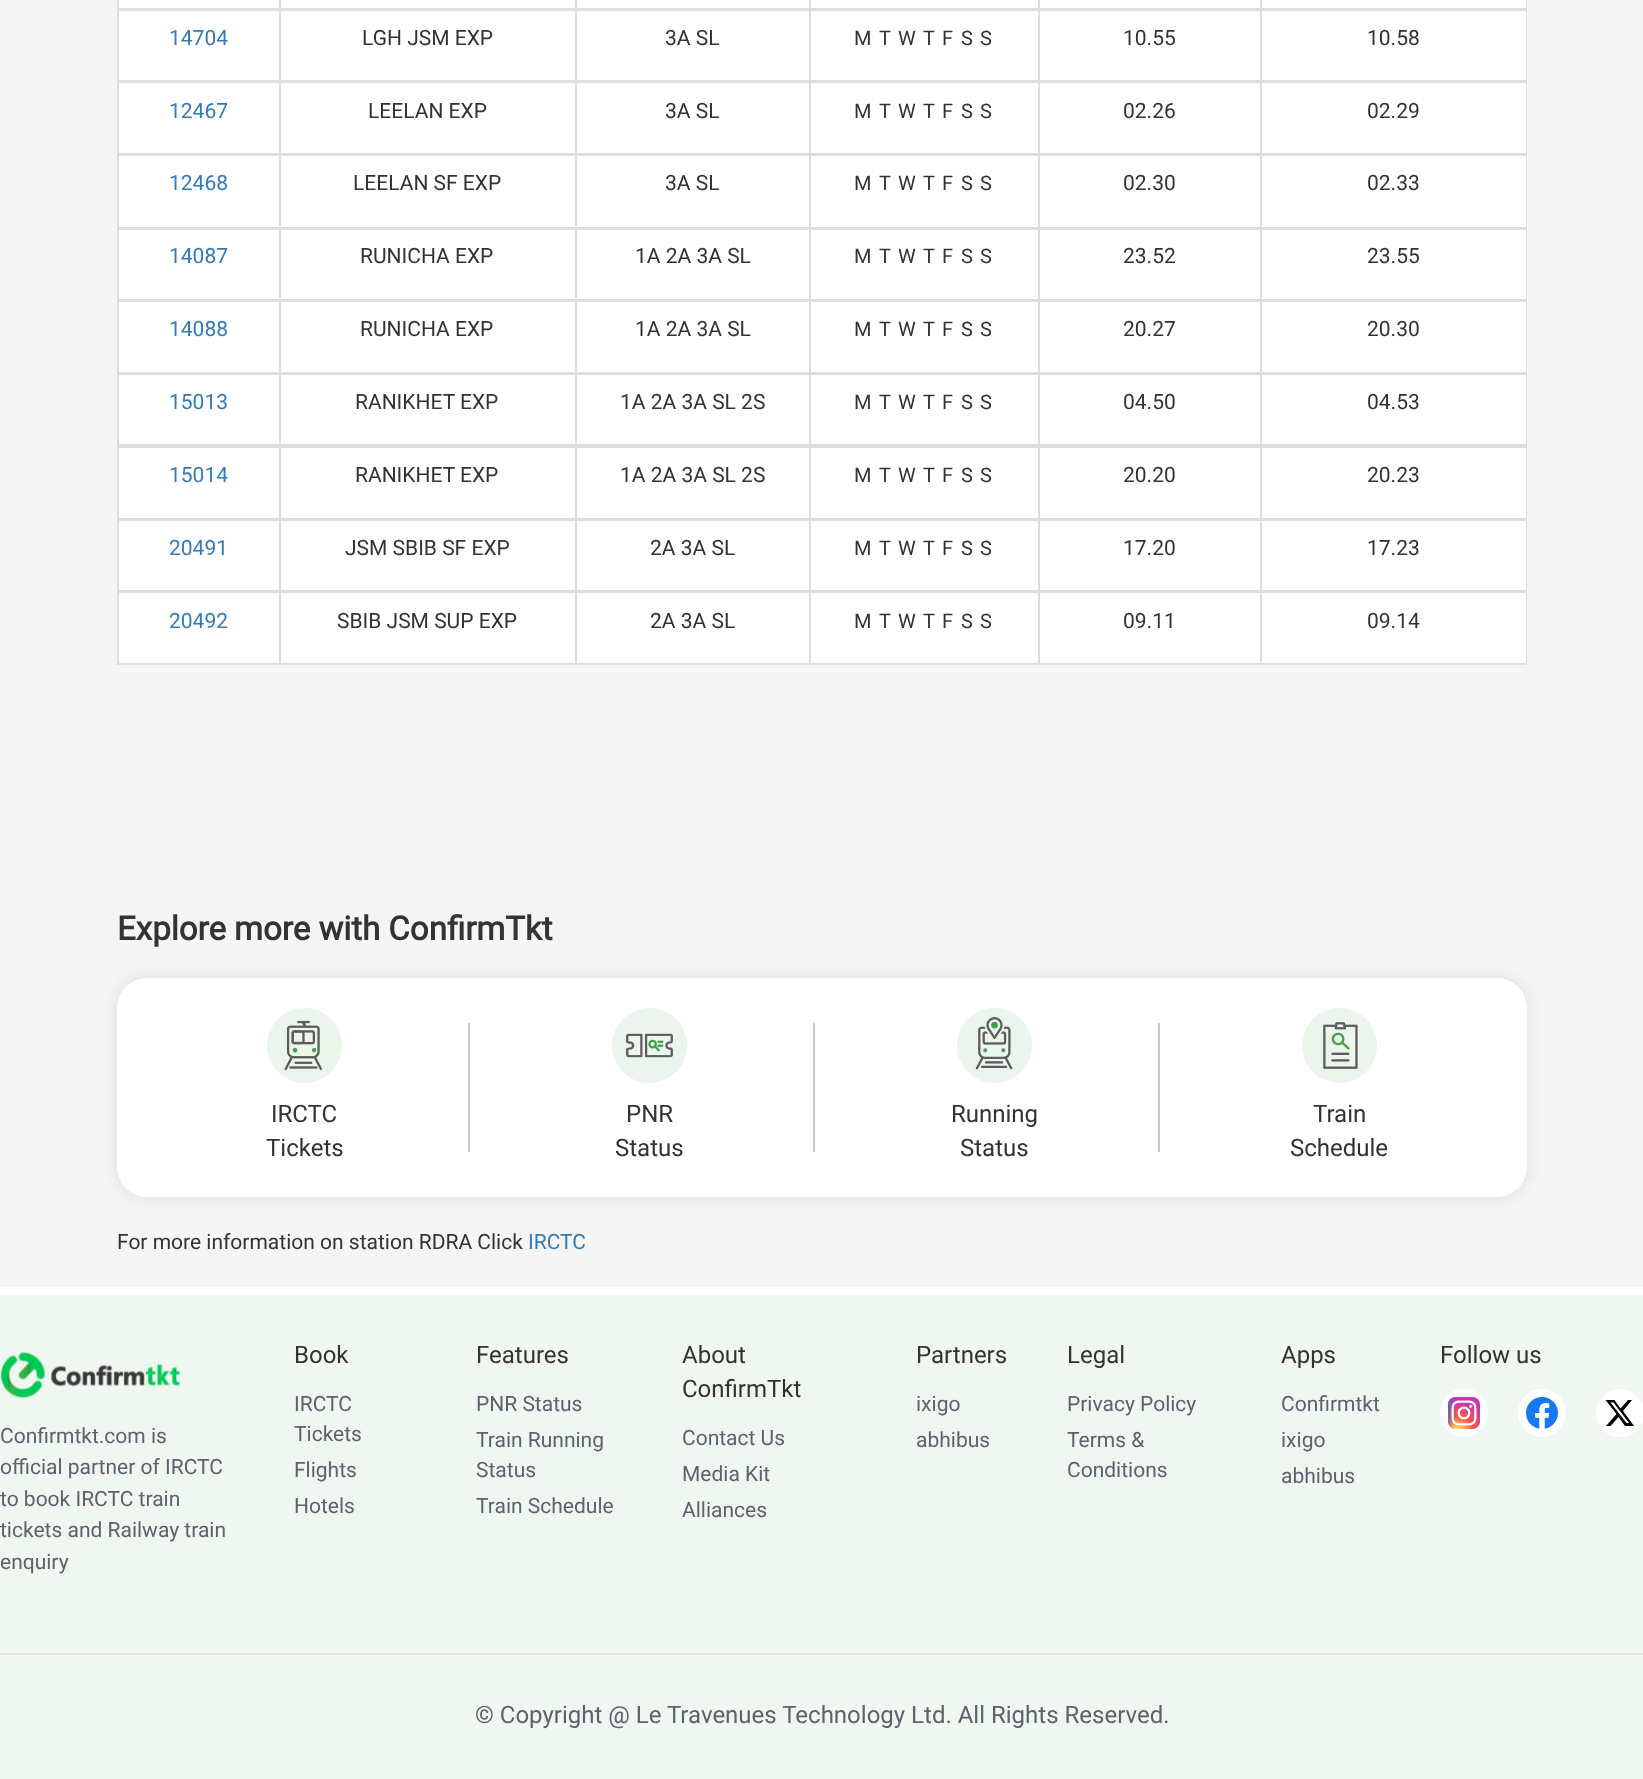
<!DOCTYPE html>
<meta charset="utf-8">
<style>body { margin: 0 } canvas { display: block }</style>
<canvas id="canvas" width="1643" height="1779"></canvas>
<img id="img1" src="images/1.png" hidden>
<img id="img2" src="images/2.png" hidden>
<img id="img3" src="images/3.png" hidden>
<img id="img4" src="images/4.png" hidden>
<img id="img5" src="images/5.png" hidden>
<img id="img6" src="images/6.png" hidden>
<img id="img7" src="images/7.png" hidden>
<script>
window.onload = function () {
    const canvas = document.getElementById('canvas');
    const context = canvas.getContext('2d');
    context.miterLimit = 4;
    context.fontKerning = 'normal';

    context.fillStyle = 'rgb(245, 245, 245)';
    context.fillRect(0, 0, 1643, 1779);
    context.fillStyle = 'rgb(255, 255, 255)';
    context.fillRect(119, 0, 1407, 663);
    context.fillStyle = 'rgb(221, 221, 221)';
    context.fillRect(1526, 0, 1, 665);
    context.fillRect(117, 663, 1410, 2);
    context.fillRect(117, 0, 2, 665);
    context.fillRect(1260, 447, 267, 1);
    context.fillRect(1260, 518, 2, 147);
    context.fillRect(1260, 0, 2, 519);
    context.fillRect(1038, 447, 224, 1);
    context.fillRect(1038, 518, 2, 147);
    context.fillRect(1038, 0, 2, 519);
    context.fillRect(575, 447, 465, 1);
    context.fillRect(575, 518, 2, 147);
    context.fillRect(575, 0, 2, 519);
    context.fillRect(279, 447, 297, 1);
    context.fillRect(279, 518, 2, 147);
    context.fillRect(279, 0, 2, 519);
    context.fillRect(809, 518, 2, 147);
    context.fillRect(809, 0, 2, 519);
    context.fillRect(117, 8, 1410, 3);
    context.fillRect(117, 80, 1410, 3);
    context.fillRect(117, 153, 1410, 3);
    context.fillRect(117, 227, 1410, 3);
    context.fillRect(117, 299, 1410, 3);
    context.fillRect(117, 372, 1410, 3);
    context.fillRect(117, 444, 1410, 3);
    context.fillRect(117, 447, 164, 1);
    context.fillRect(117, 518, 1410, 3);
    context.fillRect(117, 590, 1410, 3);
    context.fillStyle = 'rgba(0, 0, 0, 0.1)';
    context.filter = 'blur(7.5px)';
    context.beginPath();
    context.roundRect(117, 978, 1410, 219, 30);
    context.fill();
    context.filter = 'none';
    context.fillStyle = 'rgb(255, 255, 255)';
    context.beginPath();
    context.roundRect(117, 978, 1410, 219, 30);
    context.fill();
    context.drawImage(document.getElementById('img1'), 267, 1008, 75, 75);
    context.fillStyle = 'rgb(200, 202, 208)';
    context.fillRect(468, 1023, 2, 129);
    context.drawImage(document.getElementById('img2'), 612, 1008, 75, 75);
    context.fillRect(813, 1023, 2, 129);
    context.drawImage(document.getElementById('img3'), 957, 1008, 75, 75);
    context.fillRect(1158, 1023, 2, 129);
    context.drawImage(document.getElementById('img4'), 1302, 1008, 75, 75);
    context.fillStyle = 'rgb(255, 255, 255)';
    context.fillRect(0, 1287, 1643, 8);
    context.fillStyle = 'rgb(240, 247, 240)';
    context.fillRect(0, 1295, 1643, 484);
    context.drawImage(document.getElementById('img5'), 1440, 1389, 48, 48);
    context.drawImage(document.getElementById('img6'), 1518, 1389, 48, 48);
    context.fillStyle = 'rgb(255, 255, 255)';
    context.beginPath();
    context.arc(1620, 1413, 24, 0, 2 * Math.PI);
    context.fill();
    context.fillStyle = 'rgb(0, 0, 0)';
    context.beginPath();
    context.moveTo(1628, 1400);
    context.lineTo(1632, 1400);
    context.lineTo(1623, 1411);
    context.lineTo(1634, 1426);
    context.lineTo(1625, 1426);
    context.lineTo(1618.5, 1417);
    context.lineTo(1610.5, 1426);
    context.lineTo(1606, 1426);
    context.lineTo(1616.5, 1414);
    context.lineTo(1605.5, 1400);
    context.lineTo(1614.5, 1400);
    context.lineTo(1620.5, 1408.5);
    context.closePath();
    context.moveTo(1626.5, 1423);
    context.lineTo(1629, 1423);
    context.lineTo(1613.5, 1402.5);
    context.lineTo(1610.5, 1402.5);
    context.closePath();
    context.fill();
    context.drawImage(document.getElementById('img7'), 0, 1352, 180, 46);
    context.fillStyle = 'rgb(217, 236, 218)';
    context.fillRect(0, 1653, 1643, 2);
    context.font = '21px Roboto';
    context.fillStyle = 'rgb(51, 122, 183)';
    context.fillText('14704', 169, 45);
    context.fillStyle = 'rgb(51, 51, 51)';
    context.fillText('LGH JSM EXP', 362, 45);
    context.fillText('3A SL', 665, 45);
    context.font = '20px Roboto';
    context.fillText('M', 854, 45);
    context.fillText('T', 879, 45);
    context.fillText('W', 898, 45);
    context.fillText('T', 923, 45);
    context.fillText('F', 942, 45);
    context.fillText('S', 961, 45);
    context.fillText('S', 980, 45);
    context.font = '21px Roboto';
    context.fillText('10.55', 1123, 45);
    context.fillText('10.58', 1367, 45);
    context.fillStyle = 'rgb(51, 122, 183)';
    context.fillText('12467', 169, 118);
    context.fillStyle = 'rgb(51, 51, 51)';
    context.fillText('LEELAN EXP', 368, 118);
    context.fillText('3A SL', 665, 118);
    context.font = '20px Roboto';
    context.fillText('M', 854, 118);
    context.fillText('T', 879, 118);
    context.fillText('W', 898, 118);
    context.fillText('T', 923, 118);
    context.fillText('F', 942, 118);
    context.fillText('S', 961, 118);
    context.fillText('S', 980, 118);
    context.font = '21px Roboto';
    context.fillText('02.26', 1123, 118);
    context.fillText('02.29', 1367, 118);
    context.fillStyle = 'rgb(51, 122, 183)';
    context.fillText('12468', 169, 190);
    context.fillStyle = 'rgb(51, 51, 51)';
    context.fillText('LEELAN SF EXP', 353, 190);
    context.fillText('3A SL', 665, 190);
    context.font = '20px Roboto';
    context.fillText('M', 854, 190);
    context.fillText('T', 879, 190);
    context.fillText('W', 898, 190);
    context.fillText('T', 923, 190);
    context.fillText('F', 942, 190);
    context.fillText('S', 961, 190);
    context.fillText('S', 980, 190);
    context.font = '21px Roboto';
    context.fillText('02.30', 1123, 190);
    context.fillText('02.33', 1367, 190);
    context.fillStyle = 'rgb(51, 122, 183)';
    context.fillText('14087', 169, 263);
    context.fillStyle = 'rgb(51, 51, 51)';
    context.fillText('RUNICHA EXP', 360, 263);
    context.fillText('1A 2A 3A SL', 635, 263);
    context.font = '20px Roboto';
    context.fillText('M', 854, 263);
    context.fillText('T', 879, 263);
    context.fillText('W', 898, 263);
    context.fillText('T', 923, 263);
    context.fillText('F', 942, 263);
    context.fillText('S', 961, 263);
    context.fillText('S', 980, 263);
    context.font = '21px Roboto';
    context.fillText('23.52', 1123, 263);
    context.fillText('23.55', 1367, 263);
    context.fillStyle = 'rgb(51, 122, 183)';
    context.fillText('14088', 169, 336);
    context.fillStyle = 'rgb(51, 51, 51)';
    context.fillText('RUNICHA EXP', 360, 336);
    context.fillText('1A 2A 3A SL', 635, 336);
    context.font = '20px Roboto';
    context.fillText('M', 854, 336);
    context.fillText('T', 879, 336);
    context.fillText('W', 898, 336);
    context.fillText('T', 923, 336);
    context.fillText('F', 942, 336);
    context.fillText('S', 961, 336);
    context.fillText('S', 980, 336);
    context.font = '21px Roboto';
    context.fillText('20.27', 1123, 336);
    context.fillText('20.30', 1367, 336);
    context.fillStyle = 'rgb(51, 122, 183)';
    context.fillText('15013', 169, 409);
    context.fillStyle = 'rgb(51, 51, 51)';
    context.fillText('RANIKHET EXP', 355, 409);
    context.fillText('1A 2A 3A SL 2S', 620, 409);
    context.font = '20px Roboto';
    context.fillText('M', 854, 409);
    context.fillText('T', 879, 409);
    context.fillText('W', 898, 409);
    context.fillText('T', 923, 409);
    context.fillText('F', 942, 409);
    context.fillText('S', 961, 409);
    context.fillText('S', 980, 409);
    context.font = '21px Roboto';
    context.fillText('04.50', 1123, 409);
    context.fillText('04.53', 1367, 409);
    context.fillStyle = 'rgb(51, 122, 183)';
    context.fillText('15014', 169, 482);
    context.fillStyle = 'rgb(51, 51, 51)';
    context.fillText('RANIKHET EXP', 355, 482);
    context.fillText('1A 2A 3A SL 2S', 620, 482);
    context.font = '20px Roboto';
    context.fillText('M', 854, 482);
    context.fillText('T', 879, 482);
    context.fillText('W', 898, 482);
    context.fillText('T', 923, 482);
    context.fillText('F', 942, 482);
    context.fillText('S', 961, 482);
    context.fillText('S', 980, 482);
    context.font = '21px Roboto';
    context.fillText('20.20', 1123, 482);
    context.fillText('20.23', 1367, 482);
    context.fillStyle = 'rgb(51, 122, 183)';
    context.fillText('20491', 169, 555);
    context.fillStyle = 'rgb(51, 51, 51)';
    context.fillText('JSM SBIB SF EXP', 345, 555);
    context.fillText('2A 3A SL', 650, 555);
    context.font = '20px Roboto';
    context.fillText('M', 854, 555);
    context.fillText('T', 879, 555);
    context.fillText('W', 898, 555);
    context.fillText('T', 923, 555);
    context.fillText('F', 942, 555);
    context.fillText('S', 961, 555);
    context.fillText('S', 980, 555);
    context.font = '21px Roboto';
    context.fillText('17.20', 1123, 555);
    context.fillText('17.23', 1367, 555);
    context.fillStyle = 'rgb(51, 122, 183)';
    context.fillText('20492', 169, 628);
    context.fillStyle = 'rgb(51, 51, 51)';
    context.fillText('SBIB JSM SUP EXP', 337, 628);
    context.fillText('2A 3A SL', 650, 628);
    context.font = '20px Roboto';
    context.fillText('M', 854, 628);
    context.fillText('T', 879, 628);
    context.fillText('W', 898, 628);
    context.fillText('T', 923, 628);
    context.fillText('F', 942, 628);
    context.fillText('S', 961, 628);
    context.fillText('S', 980, 628);
    context.font = '21px Roboto';
    context.fillText('09.11', 1123, 628);
    context.fillText('09.14', 1367, 628);
    context.font = 'bold 33px Roboto';
    context.fillText('Explore more with ConfirmTkt', 117, 940);
    context.font = '24px Roboto';
    context.fillText('IRCTC', 271, 1122);
    context.fillText('Tickets', 266, 1156);
    context.fillText('PNR', 626, 1122);
    context.fillText('Status', 615, 1156);
    context.fillText('Running', 951, 1122);
    context.fillText('Status', 960, 1156);
    context.fillText('Train', 1313, 1122);
    context.fillText('Schedule', 1290, 1156);
    context.font = '21px Roboto';
    context.fillText('For more information on station RDRA Click', 117, 1249);
    context.fillStyle = 'rgb(51, 122, 183)';
    context.fillText('IRCTC', 528, 1249);
    context.font = '24px Roboto';
    context.fillStyle = 'rgb(51, 51, 51)';
    context.fillText('Book', 294, 1363);
    context.font = '21px Roboto';
    context.fillStyle = 'rgb(94, 97, 110)';
    context.fillText('IRCTC', 294, 1411);
    context.fillText('Tickets', 294, 1441);
    context.fillText('Flights', 294, 1477);
    context.fillText('Hotels', 294, 1513);
    context.font = '24px Roboto';
    context.fillStyle = 'rgb(51, 51, 51)';
    context.fillText('Features', 476, 1363);
    context.font = '21px Roboto';
    context.fillStyle = 'rgb(94, 97, 110)';
    context.fillText('PNR Status', 476, 1411);
    context.fillText('Train Running', 476, 1447);
    context.fillText('Status', 476, 1477);
    context.fillText('Train Schedule', 476, 1513);
    context.font = '24px Roboto';
    context.fillStyle = 'rgb(51, 51, 51)';
    context.fillText('About', 682, 1363);
    context.fillText('ConfirmTkt', 682, 1397);
    context.font = '21px Roboto';
    context.fillStyle = 'rgb(94, 97, 110)';
    context.fillText('Contact Us', 682, 1445);
    context.fillText('Media Kit', 682, 1481);
    context.fillText('Alliances', 682, 1517);
    context.font = '24px Roboto';
    context.fillStyle = 'rgb(51, 51, 51)';
    context.fillText('Partners', 916, 1363);
    context.font = '21px Roboto';
    context.fillStyle = 'rgb(94, 97, 110)';
    context.fillText('ixigo', 916, 1411);
    context.fillText('abhibus', 916, 1447);
    context.font = '24px Roboto';
    context.fillStyle = 'rgb(51, 51, 51)';
    context.fillText('Legal', 1067, 1363);
    context.font = '21px Roboto';
    context.fillStyle = 'rgb(94, 97, 110)';
    context.fillText('Privacy Policy', 1067, 1411);
    context.fillText('Terms &', 1067, 1447);
    context.fillText('Conditions', 1067, 1477);
    context.font = '24px Roboto';
    context.fillStyle = 'rgb(51, 51, 51)';
    context.fillText('Apps', 1281, 1363);
    context.font = '21px Roboto';
    context.fillStyle = 'rgb(94, 97, 110)';
    context.fillText('Confirmtkt', 1281, 1411);
    context.fillText('ixigo', 1281, 1447);
    context.fillText('abhibus', 1281, 1483);
    context.font = '24px Roboto';
    context.fillStyle = 'rgb(51, 51, 51)';
    context.fillText('Follow us', 1440, 1363);
    context.font = '21px Roboto';
    context.fillStyle = 'rgb(94, 97, 110)';
    context.fillText('Confirmtkt.com is', 0, 1443);
    context.fillText('official partner of IRCTC', 0, 1474);
    context.fillText('to book IRCTC train', 0, 1506);
    context.fillText('tickets and Railway train', 0, 1537);
    context.fillText('enquiry', 0, 1569);
    context.font = '24px Roboto';
    context.fillText('© Copyright @ Le Travenues Technology Ltd. All Rights Reserved.', 475, 1723);
};
</script>
